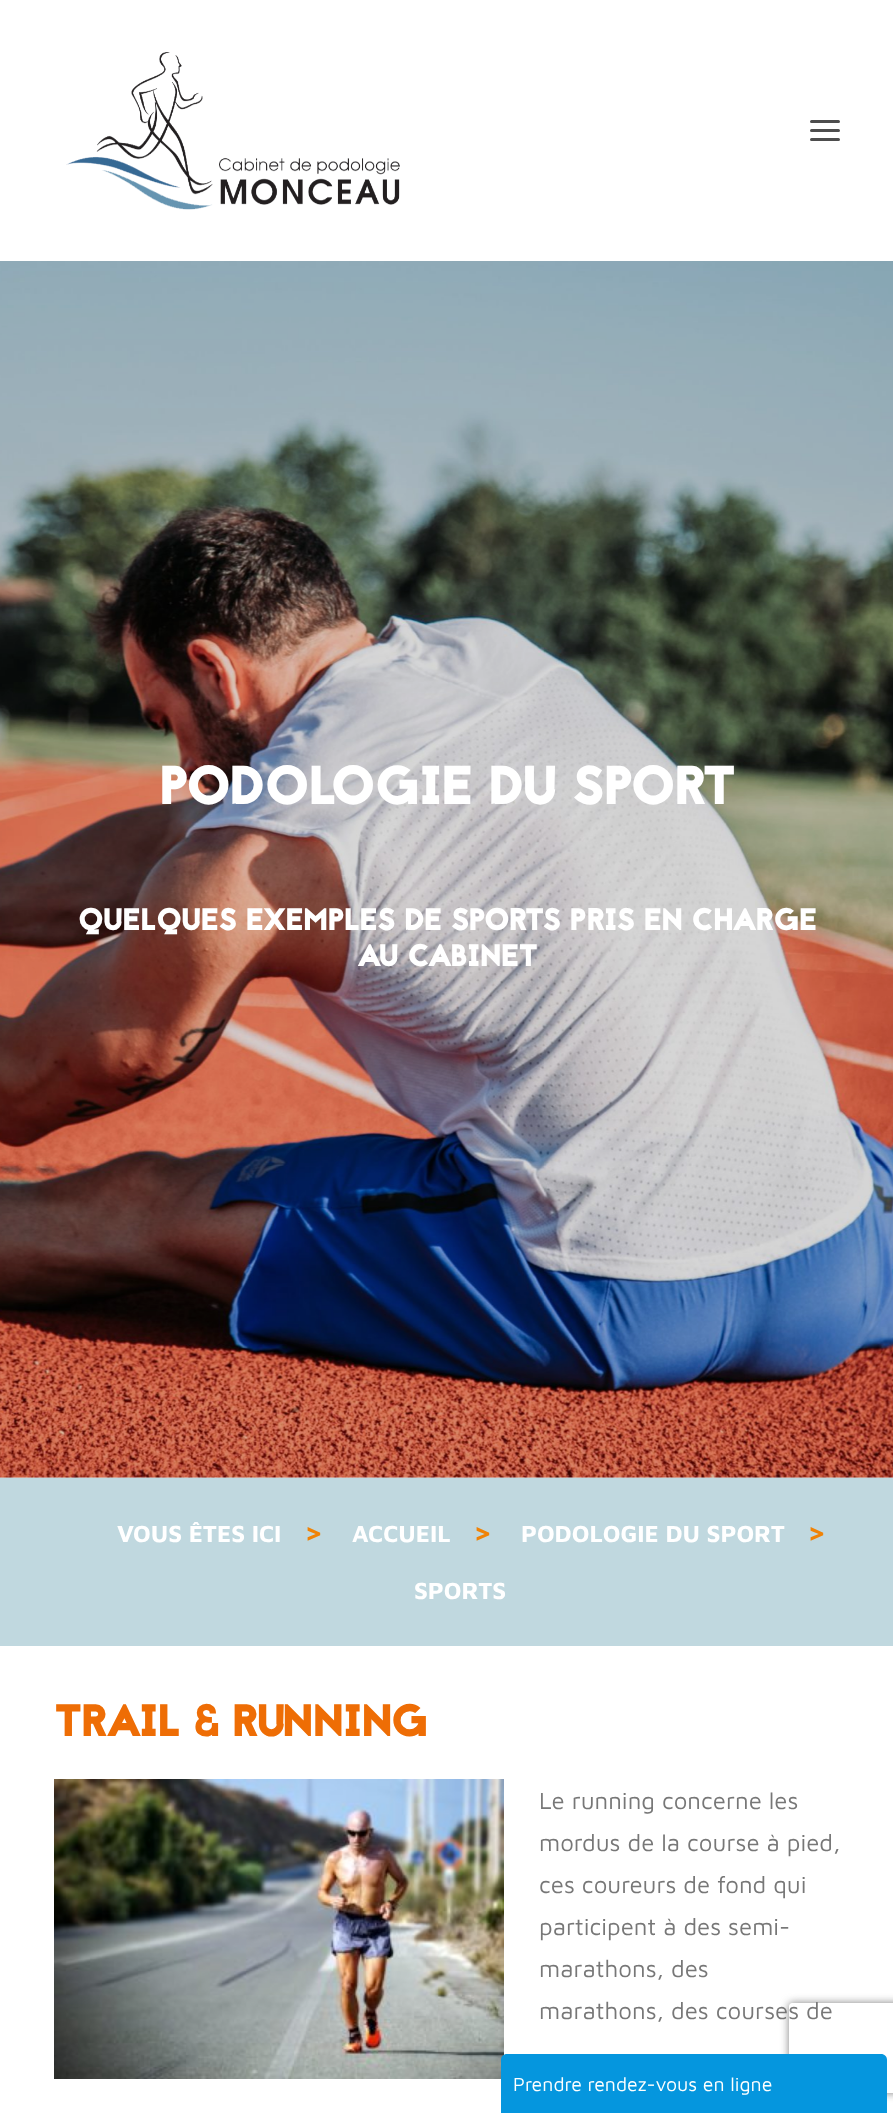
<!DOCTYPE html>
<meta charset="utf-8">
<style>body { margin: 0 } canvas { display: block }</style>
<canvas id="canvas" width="893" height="2113"></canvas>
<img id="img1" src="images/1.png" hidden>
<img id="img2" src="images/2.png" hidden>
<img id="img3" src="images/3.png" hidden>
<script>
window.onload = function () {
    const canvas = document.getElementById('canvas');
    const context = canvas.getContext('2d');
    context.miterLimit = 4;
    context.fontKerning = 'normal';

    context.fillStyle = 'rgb(255, 255, 255)';
    context.fillRect(0, 0, 893, 2113);
    context.fillStyle = 'rgb(217, 217, 217)';
    context.fillRect(0, 1477, 893, 1);
    context.drawImage(document.getElementById('img1'), 66, 52, 334, 158);
    context.fillStyle = 'rgb(77, 77, 77)';
    context.beginPath();
    context.roundRect(810, 129, 30, 3, 1.5);
    context.fill();
    context.beginPath();
    context.roundRect(810, 120, 30, 3, 1.5);
    context.fill();
    context.beginPath();
    context.roundRect(810, 138, 30, 3, 1.5);
    context.fill();
    context.drawImage(document.getElementById('img2'), 0, 261, 893, 1217);
    context.fillStyle = 'rgb(192, 216, 223)';
    context.fillRect(0, 1478, 893, 168);
    context.drawImage(document.getElementById('img3'), 54, 1779, 450, 300);
    context.save();
    context.beginPath();
    context.moveTo(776, 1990);
    context.lineTo(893, 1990);
    context.lineTo(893, 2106);
    context.lineTo(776, 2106);
    context.closePath();
    context.moveTo(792, 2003);
    context.lineTo(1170, 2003);
    context.bezierCurveTo(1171.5, 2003, 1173, 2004.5, 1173, 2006);
    context.lineTo(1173, 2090);
    context.bezierCurveTo(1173, 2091.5, 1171.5, 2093, 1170, 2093);
    context.lineTo(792, 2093);
    context.bezierCurveTo(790.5, 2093, 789, 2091.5, 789, 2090);
    context.lineTo(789, 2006);
    context.bezierCurveTo(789, 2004.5, 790.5, 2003, 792, 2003);
    context.closePath();
    context.clip('evenodd');
    context.fillStyle = 'rgb(128, 128, 128)';
    context.filter = 'blur(4px)';
    context.beginPath();
    context.roundRect(789, 2003, 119, 90, 3);
    context.fill();
    context.filter = 'none';
    context.restore();
    context.fillStyle = 'rgb(5, 150, 222)';
    context.beginPath();
    context.moveTo(507, 2054);
    context.lineTo(881, 2054);
    context.bezierCurveTo(884.5, 2054, 887, 2056.5, 887, 2060);
    context.lineTo(887, 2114);
    context.lineTo(501, 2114);
    context.lineTo(501, 2060);
    context.bezierCurveTo(501, 2056.5, 503.5, 2054, 507, 2054);
    context.closePath();
    context.fill();
    context.font = 'bold 52.5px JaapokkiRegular';
    context.fillStyle = 'rgb(255, 255, 255)';
    context.fillText('PODOLOGIE DU SPORT', 159, 804);
    context.font = 'bold 30px JaapokkiRegular';
    context.fillText('QUELQUES EXEMPLES DE SPORTS PRIS EN CHARGE', 78, 930);
    context.fillText('AU CABINET', 357, 966);
    context.font = 'bold 24px Maven Pro';
    context.fillText('VOUS ÊTES ICI', 117, 1542);
    context.font = 'bold 30px Maven Pro';
    context.fillStyle = 'rgb(240, 131, 6)';
    context.fillText('>', 304, 1542);
    context.font = 'bold 24px Maven Pro';
    context.fillStyle = 'rgb(255, 255, 255)';
    context.fillText('ACCUEIL', 352, 1542);
    context.font = 'bold 30px Maven Pro';
    context.fillStyle = 'rgb(240, 131, 6)';
    context.fillText('>', 473, 1542);
    context.font = 'bold 24px Maven Pro';
    context.fillStyle = 'rgb(255, 255, 255)';
    context.fillText('PODOLOGIE DU SPORT', 521, 1542);
    context.font = 'bold 30px Maven Pro';
    context.fillStyle = 'rgb(240, 131, 6)';
    context.fillText('>', 807, 1542);
    context.font = 'bold 24px Maven Pro';
    context.fillStyle = 'rgb(255, 255, 255)';
    context.fillText('SPORTS', 414, 1599);
    context.font = 'bold 43.5px JaapokkiRegular';
    context.fillStyle = 'rgb(238, 109, 5)';
    context.fillText('TRAIL & RUNNING', 54, 1736);
    context.font = '24px Maven Pro';
    context.fillStyle = 'rgb(119, 119, 119)';
    context.fillText('Le running concerne les', 539, 1809);
    context.fillText('mordus de la course à pied,', 539, 1851);
    context.fillText('ces coureurs de fond qui', 539, 1893);
    context.fillText('participent à des semi-', 539, 1935);
    context.fillText('marathons, des', 539, 1977);
    context.fillText('marathons, des courses de', 539, 2019);
    context.font = '19.5px Maven Pro';
    context.fillStyle = 'rgb(255, 255, 255)';
    context.fillText('Prendre rendez-vous en ligne', 513, 2091);
};
</script>
